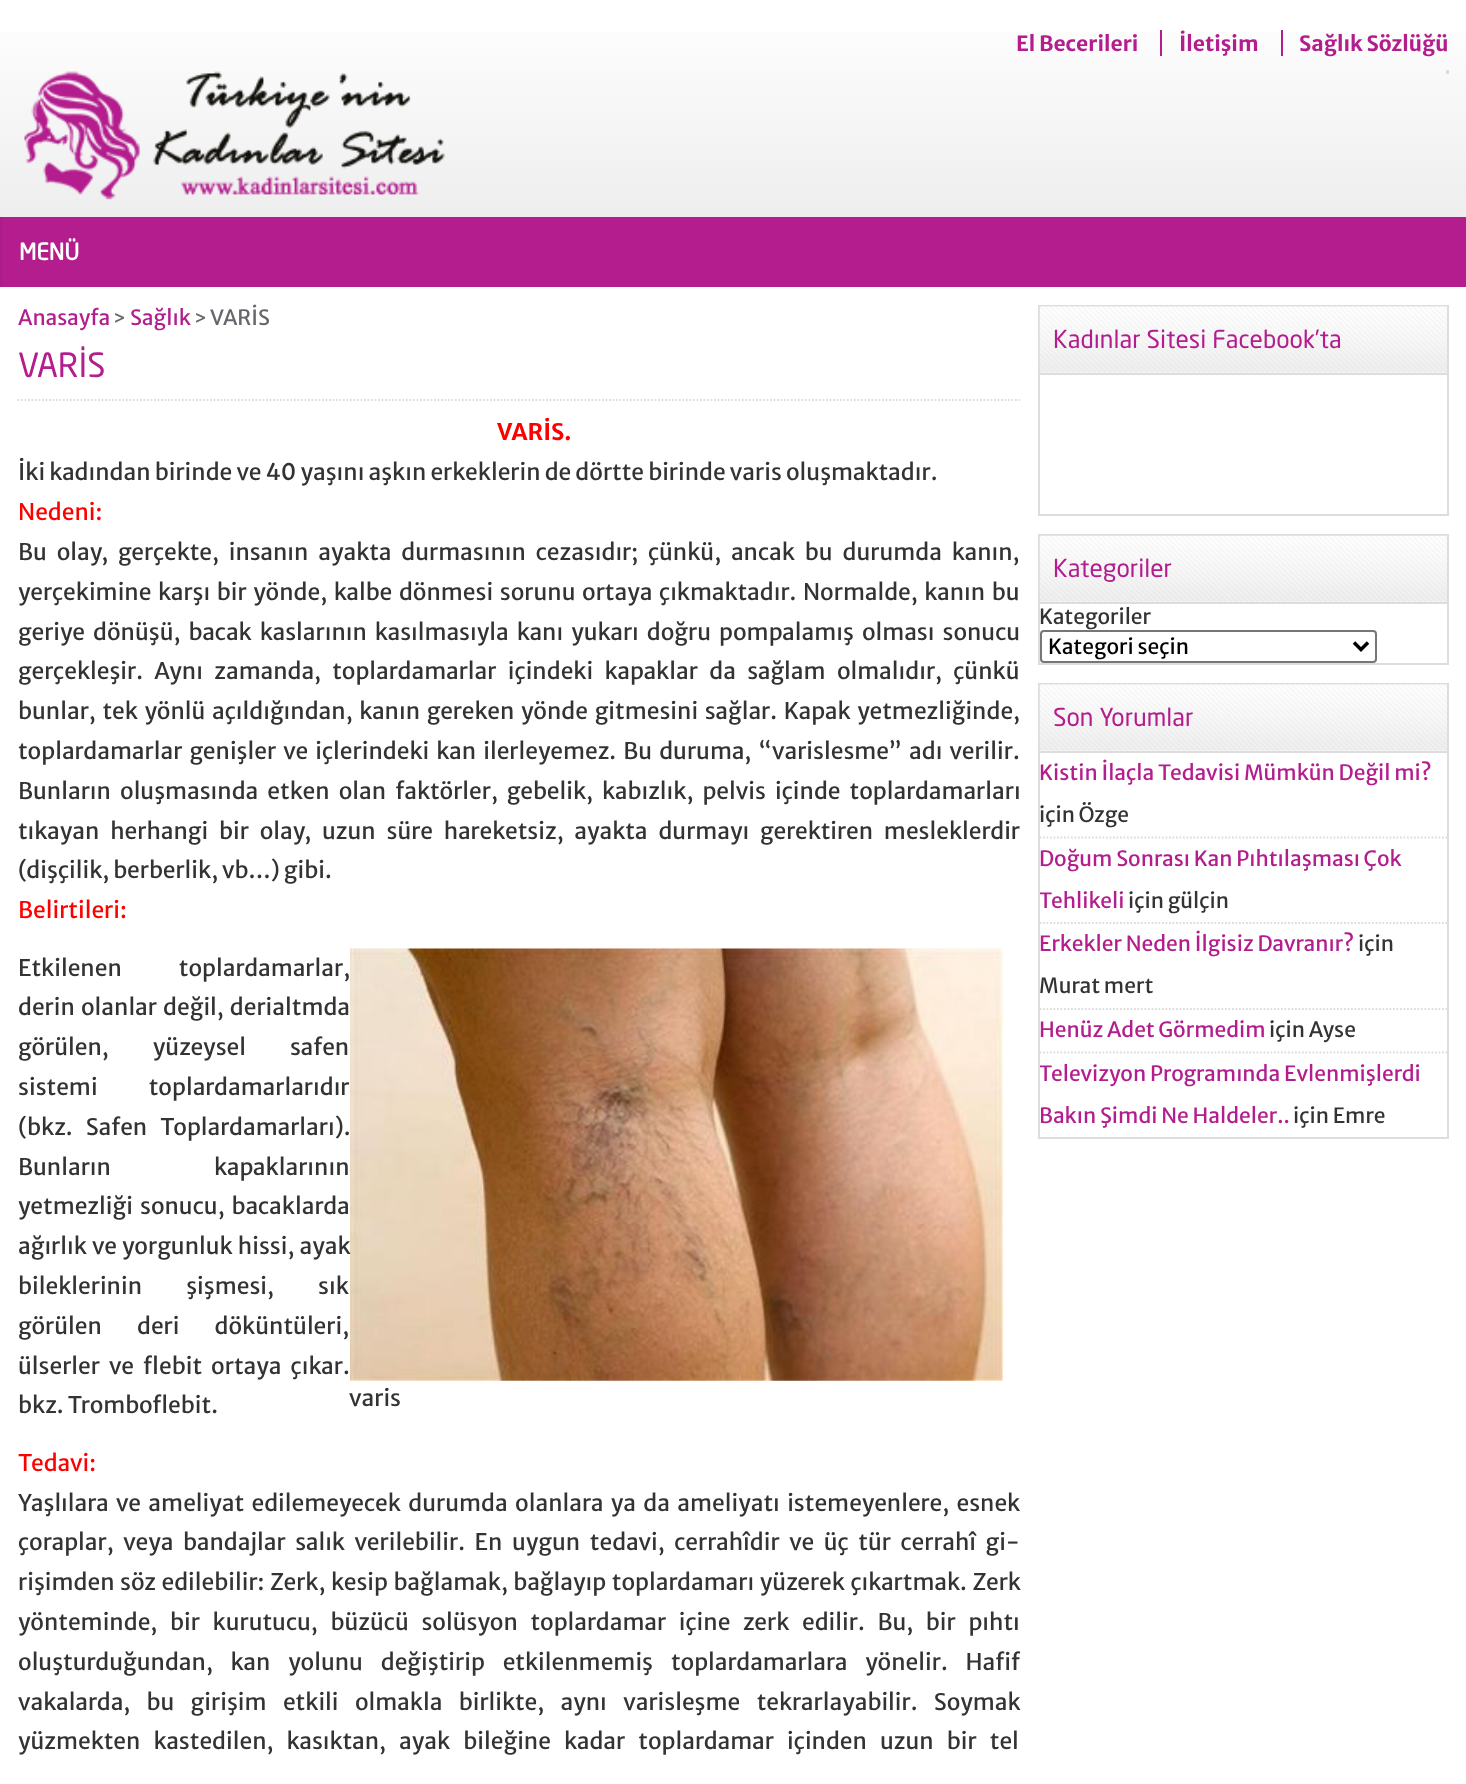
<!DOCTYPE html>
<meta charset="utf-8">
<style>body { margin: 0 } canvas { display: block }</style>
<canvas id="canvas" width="1466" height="1784"></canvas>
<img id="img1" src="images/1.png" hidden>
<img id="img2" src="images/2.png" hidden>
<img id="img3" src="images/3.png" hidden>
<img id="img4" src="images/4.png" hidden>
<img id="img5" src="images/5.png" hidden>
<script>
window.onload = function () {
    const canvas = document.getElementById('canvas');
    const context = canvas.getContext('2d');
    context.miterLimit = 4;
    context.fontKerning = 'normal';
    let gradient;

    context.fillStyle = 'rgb(255, 255, 255)';
    context.fillRect(0, 0, 1466, 1784);
    gradient = context.createLinearGradient(733, 217, 733, 0);
    gradient.addColorStop(0, 'rgb(238, 238, 238)');
    gradient.addColorStop(1, 'rgb(255, 255, 255)');
    context.fillStyle = gradient;
    context.fillRect(0, 32, 1466, 185);
    context.fillStyle = 'rgb(179, 29, 141)';
    context.fillRect(1160, 30, 2, 26);
    context.fillRect(1281, 30, 2, 26);
    context.drawImage(document.getElementById('img1'), 24, 71, 421, 129);
    context.fillStyle = 'rgb(221, 221, 221)';
    context.fillRect(1446, 70, 3, 4);
    context.fillStyle = 'rgb(179, 29, 141)';
    context.fillRect(2, 217, 1464, 70);
    context.fillStyle = 'rgb(170, 28, 134)';
    context.fillRect(0, 217, 2, 70);
    context.beginPath();
    context.moveTo(17.5, 400);
    context.lineTo(1020, 400);
    context.strokeStyle = 'rgb(221, 221, 221)';
    context.lineWidth = 1.8;
    context.setLineDash([1.75, 1.75]);
    context.stroke();
    context.drawImage(document.getElementById('img2'), 350, 948, 653, 433);
    context.lineWidth = 2;
    context.setLineDash([]);
    context.strokeRect(1039, 306, 409, 209);
    context.drawImage(document.getElementById('img3'), 1039, 306, 408, 67);
    context.fillStyle = 'rgb(221, 221, 221)';
    context.fillRect(1040, 373, 407, 2);
    context.strokeRect(1039, 535, 409, 129);
    context.drawImage(document.getElementById('img4'), 1039, 535, 408, 68);
    context.fillRect(1040, 602, 407, 2);
    context.beginPath();
    context.roundRect(1041, 631, 335, 31, 3);
    context.strokeStyle = 'rgb(118, 118, 118)';
    context.stroke();
    context.beginPath();
    context.moveTo(1354, 642.5);
    context.lineTo(1361, 649.5);
    context.lineTo(1368, 642.5);
    context.strokeStyle = 'rgb(0, 0, 0)';
    context.lineWidth = 3.5;
    context.stroke();
    context.strokeStyle = 'rgb(221, 221, 221)';
    context.lineWidth = 2;
    context.strokeRect(1039, 684, 409, 454);
    context.drawImage(document.getElementById('img5'), 1039, 684, 408, 67);
    context.fillRect(1040, 751, 407, 2);
    context.save();
    context.beginPath();
    context.rect(1040, 684, 407, 454);
    context.clip();
    context.beginPath();
    context.moveTo(1039.5, 837.5);
    context.lineTo(1447, 837.5);
    context.lineWidth = 1.8;
    context.setLineDash([1.75, 1.75]);
    context.stroke();
    context.restore();
    context.beginPath();
    context.moveTo(1039.5, 923);
    context.lineTo(1447, 923);
    context.lineWidth = 1.8;
    context.setLineDash([1.75, 1.75]);
    context.stroke();
    context.beginPath();
    context.moveTo(1039.5, 1009);
    context.lineTo(1447, 1009);
    context.stroke();
    context.save();
    context.beginPath();
    context.rect(1040, 684, 407, 454);
    context.clip();
    context.beginPath();
    context.moveTo(1039.5, 1052.5);
    context.lineTo(1447, 1052.5);
    context.stroke();
    context.restore();
    context.font = 'bold 21px Merriweather Sans';
    context.fillStyle = 'rgb(179, 29, 141)';
    context.fillText('El Becerileri', 1016, 51);
    context.fillText('İletişim', 1179, 51);
    context.fillText('Sağlık Sözlüğü', 1299, 51);
    context.font = 'bold 22.75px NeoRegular';
    context.fillStyle = 'rgb(255, 255, 255)';
    context.fillText('MENÜ', 19, 260);
    context.font = '21px Merriweather Sans';
    context.fillStyle = 'rgb(179, 29, 141)';
    context.fillText('Anasayfa', 18, 325);
    context.font = '19px Merriweather Sans';
    context.fillStyle = 'rgb(102, 103, 108)';
    context.fillText('>', 113, 325);
    context.font = '21px Merriweather Sans';
    context.fillStyle = 'rgb(179, 29, 141)';
    context.fillText('Sağlık', 130, 325);
    context.font = '19px Merriweather Sans';
    context.fillStyle = 'rgb(102, 103, 108)';
    context.fillText('>', 194, 325);
    context.font = '21px Merriweather Sans';
    context.fillText('VARİS', 210, 325);
    context.font = '33px NeoRegular';
    context.fillStyle = 'rgb(179, 29, 141)';
    context.fillText('VARİS', 18, 377);
    context.font = 'bold 22.75px Merriweather Sans';
    context.fillStyle = 'rgb(255, 0, 0)';
    context.fillText('VARİS.', 497, 440);
    context.font = '22.75px Merriweather Sans';
    context.fillStyle = 'rgb(51, 51, 51)';
    context.fillText('İki kadından birinde ve 40 yaşını aşkın erkeklerin de dörtte birinde varis oluşmaktadır.', 18, 480);
    context.fillStyle = 'rgb(255, 0, 0)';
    context.fillText('Nedeni:', 18, 520);
    context.wordSpacing = '5.75px';
    context.fillStyle = 'rgb(51, 51, 51)';
    context.fillText('Bu olay, gerçekte, insanın ayakta durmasının cezasıdır; çünkü, ancak bu durumda kanın,', 18, 560);
    context.wordSpacing = '2.5px';
    context.fillText('yerçekimine karşı bir yönde, kalbe dönmesi sorunu ortaya çıkmaktadır. Normalde, kanın bu', 18, 600);
    context.wordSpacing = '3.9px';
    context.fillText('geriye dönüşü, bacak kaslarının kasılmasıyla kanı yukarı doğru pompalamış olması sonucu', 18, 640);
    context.wordSpacing = '7.25px';
    context.fillText('gerçekleşir. Aynı zamanda, toplardamarlar içindeki kapaklar da sağlam olmalıdır, çünkü', 18, 679);
    context.wordSpacing = '2.6px';
    context.fillText('bunlar, tek yönlü açıldığından, kanın gereken yönde gitmesini sağlar. Kapak yetmezliğinde,', 18, 719);
    context.wordSpacing = '3px';
    context.fillText('toplardamarlar genişler ve içlerindeki kan ilerleyemez. Bu duruma, “varislesme” adı verilir.', 18, 759);
    context.wordSpacing = '5px';
    context.fillText('Bunların oluşmasında etken olan faktörler, gebelik, kabızlık, pelvis içinde toplardamarları', 18, 799);
    context.wordSpacing = '6.75px';
    context.fillText('tıkayan herhangi bir olay, uzun süre hareketsiz, ayakta durmayı gerektiren mesleklerdir', 18, 839);
    context.wordSpacing = '0px';
    context.fillText('(dişçilik, berberlik, vb…) gibi.', 18, 878);
    context.fillStyle = 'rgb(255, 0, 0)';
    context.fillText('Belirtileri:', 18, 918);
    context.wordSpacing = '53px';
    context.fillStyle = 'rgb(51, 51, 51)';
    context.fillText('Etkilenen toplardamarlar,', 18, 976);
    context.wordSpacing = '2px';
    context.fillText('derin olanlar değil, derialtmda', 18, 1015);
    context.wordSpacing = '40px';
    context.fillText('görülen, yüzeysel safen', 18, 1055);
    context.wordSpacing = '47px';
    context.fillText('sistemi toplardamarlarıdır', 18, 1095);
    context.wordSpacing = '9px';
    context.fillText('(bkz. Safen Toplardamarları).', 18, 1135);
    context.wordSpacing = '99px';
    context.fillText('Bunların kapaklarının', 18, 1175);
    context.wordSpacing = '3px';
    context.fillText('yetmezliği sonucu, bacaklarda', 18, 1214);
    context.wordSpacing = '1px';
    context.fillText('ağırlık ve yorgunluk hissi, ayak', 18, 1254);
    context.wordSpacing = '40px';
    context.fillText('bileklerinin şişmesi, sık', 18, 1294);
    context.wordSpacing = '31px';
    context.fillText('görülen deri döküntüleri,', 18, 1334);
    context.wordSpacing = '5px';
    context.fillText('ülserler ve flebit ortaya çıkar.', 18, 1374);
    context.wordSpacing = '0px';
    context.fillText('bkz. Tromboflebit.', 18, 1413);
    context.fillText('varis', 349, 1406);
    context.fillStyle = 'rgb(255, 0, 0)';
    context.fillText('Tedavi:', 18, 1471);
    context.wordSpacing = '3.25px';
    context.fillStyle = 'rgb(51, 51, 51)';
    context.fillText('Yaşlılara ve ameliyat edilemeyecek durumda olanlara ya da ameliyatı istemeyenlere, esnek', 18, 1511);
    context.wordSpacing = '5.5px';
    context.fillText('çoraplar, veya bandajlar salık verilebilir. En uygun tedavi, cerrahîdir ve üç tür cerrahî gi-', 18, 1550);
    context.wordSpacing = '1.5px';
    context.fillText('rişimden söz edilebilir: Zerk, kesip bağlamak, bağlayıp toplardamarı yüzerek çıkartmak. Zerk', 18, 1590);
    context.wordSpacing = '8.6px';
    context.fillText('yönteminde, bir kurutucu, büzücü solüsyon toplardamar içine zerk edilir. Bu, bir pıhtı', 18, 1630);
    context.wordSpacing = '13.75px';
    context.fillText('oluşturduğundan, kan yolunu değiştirip etkilenmemiş toplardamarlara yönelir. Hafif', 18, 1670);
    context.wordSpacing = '12.25px';
    context.fillText('vakalarda, bu girişim etkili olmakla birlikte, aynı varisleşme tekrarlayabilir. Soymak', 18, 1710);
    context.wordSpacing = '9px';
    context.fillText('yüzmekten kastedilen, kasıktan, ayak bileğine kadar toplardamar içinden uzun bir tel', 18, 1749);
    context.wordSpacing = '0px';
    context.font = '24.5px NeoRegular';
    context.fillStyle = 'rgb(179, 29, 141)';
    context.fillText('Kadınlar Sitesi Facebook’ta', 1053, 348);
    context.fillText('Kategoriler', 1053, 577);
    context.font = '21px Merriweather Sans';
    context.fillStyle = 'rgb(51, 51, 51)';
    context.fillText('Kategoriler', 1039, 624);
    context.fillStyle = 'rgb(0, 0, 0)';
    context.fillText('Kategori seçin', 1048, 654);
    context.font = '24.5px NeoRegular';
    context.fillStyle = 'rgb(179, 29, 141)';
    context.fillText('Son Yorumlar', 1053, 726);
    context.font = '21px Merriweather Sans';
    context.fillText('Kistin İlaçla Tedavisi Mümkün Değil mi?', 1039, 780);
    context.fillStyle = 'rgb(51, 51, 51)';
    context.fillText('için Özge', 1039, 822);
    context.fillStyle = 'rgb(179, 29, 141)';
    context.fillText('Doğum Sonrası Kan Pıhtılaşması Çok', 1039, 866);
    context.save();
    context.beginPath();
    context.rect(1040, 684, 407, 454);
    context.clip();
    context.fillText('Tehlikeli', 1039, 908);
    context.restore();
    context.fillStyle = 'rgb(51, 51, 51)';
    context.fillText('için gülçin', 1128, 908);
    context.fillStyle = 'rgb(179, 29, 141)';
    context.fillText('Erkekler Neden İlgisiz Davranır?', 1039, 951);
    context.fillStyle = 'rgb(51, 51, 51)';
    context.fillText('için', 1358, 951);
    context.fillText('Murat mert', 1039, 993);
    context.fillStyle = 'rgb(179, 29, 141)';
    context.fillText('Henüz Adet Görmedim', 1039, 1037);
    context.fillStyle = 'rgb(51, 51, 51)';
    context.fillText('için Ayse', 1269, 1037);
    context.save();
    context.beginPath();
    context.rect(1040, 684, 407, 454);
    context.clip();
    context.fillStyle = 'rgb(179, 29, 141)';
    context.fillText('Televizyon Programında Evlenmişlerdi', 1039, 1081);
    context.restore();
    context.fillStyle = 'rgb(179, 29, 141)';
    context.fillText('Bakın Şimdi Ne Haldeler..', 1039, 1123);
    context.fillStyle = 'rgb(51, 51, 51)';
    context.fillText('için Emre', 1293, 1123);
};
</script>
